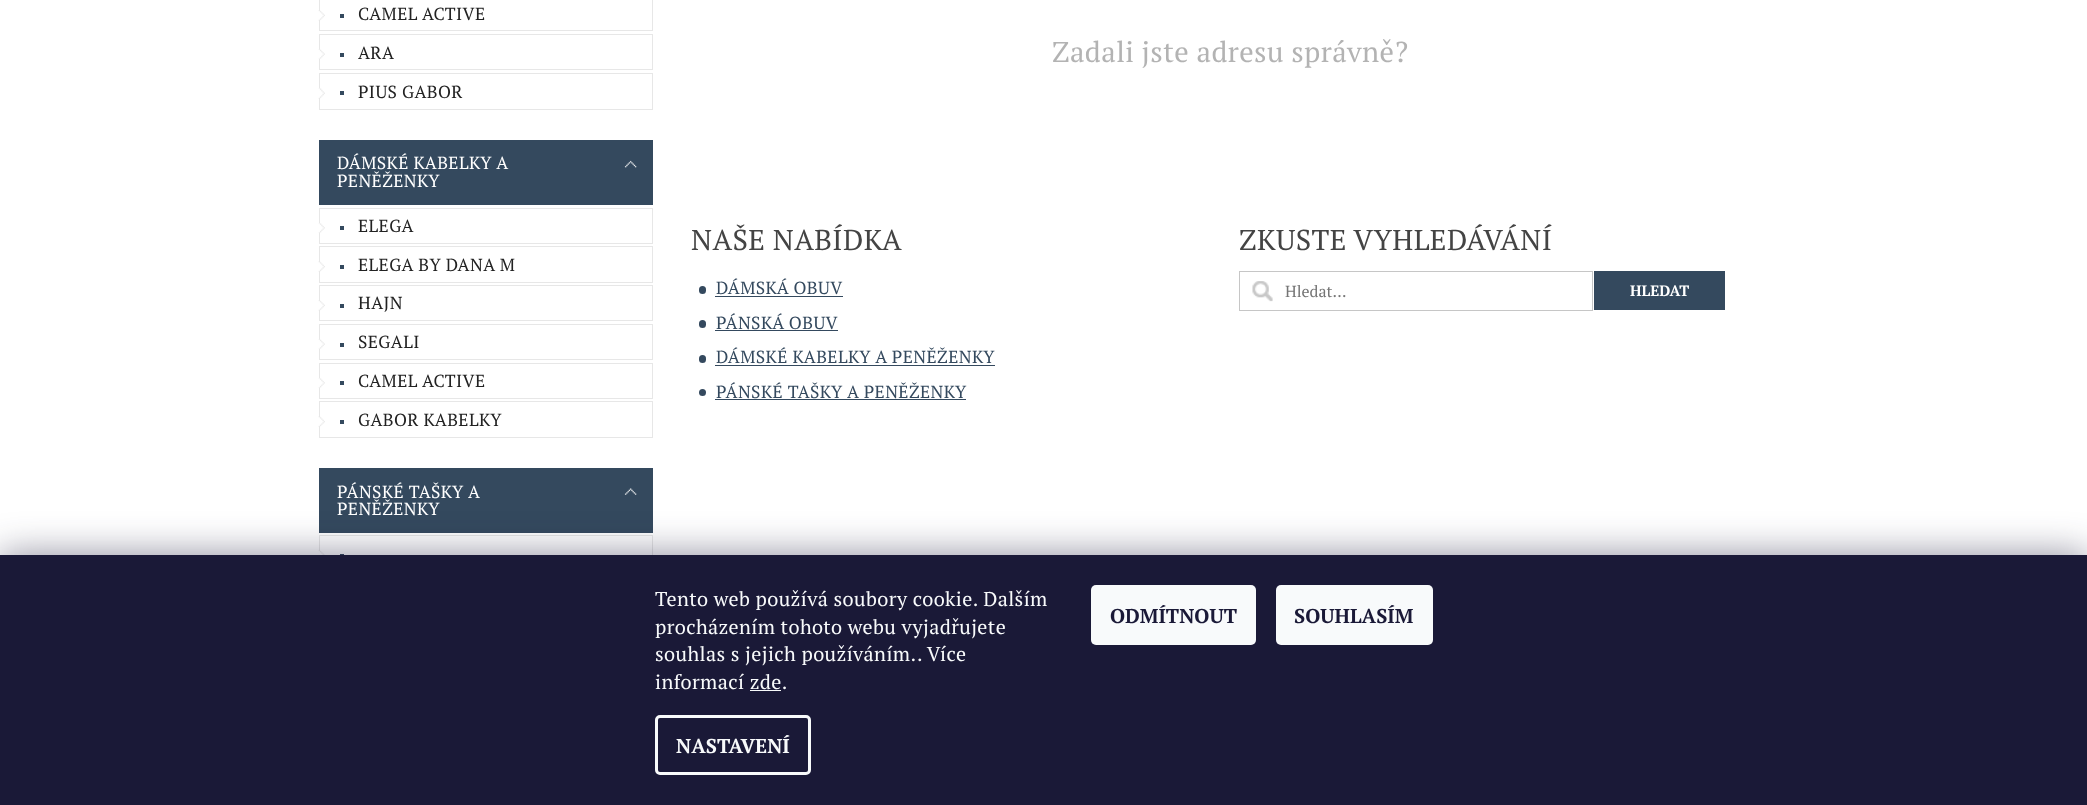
<!DOCTYPE html>
<meta charset="utf-8">
<style>body { margin: 0 } canvas { display: block }</style>
<canvas id="canvas" width="2087" height="805"></canvas>
<img id="img1" src="images/1.png" hidden>
<img id="img2" src="images/2.png" hidden>
<img id="img3" src="images/3.png" hidden>
<img id="img4" src="images/4.png" hidden>
<img id="img5" src="images/5.png" hidden>
<img id="img6" src="images/6.png" hidden>
<img id="img7" src="images/7.png" hidden>
<img id="img8" src="images/8.png" hidden>
<img id="img9" src="images/9.png" hidden>
<script>
window.onload = function () {
    const canvas = document.getElementById('canvas');
    const context = canvas.getContext('2d');
    context.miterLimit = 4;
    context.fontKerning = 'normal';

    context.fillStyle = 'rgb(255, 255, 255)';
    context.fillRect(0, 0, 2087, 805);
    context.strokeStyle = 'rgb(231, 231, 231)';
    context.strokeRect(319.5, -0.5, 333, 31);
    context.drawImage(document.getElementById('img1'), 318, 10, 7, 11);
    context.fillStyle = 'rgb(52, 73, 94)';
    context.fillRect(340, 14, 4, 4);
    context.strokeRect(319.5, 34.5, 333, 35);
    context.drawImage(document.getElementById('img2'), 318, 49, 7, 10);
    context.fillRect(340, 53, 4, 4);
    context.strokeRect(319.5, 73.5, 333, 36);
    context.drawImage(document.getElementById('img3'), 318, 88, 7, 11);
    context.fillRect(340, 91, 4, 4);
    context.fillRect(319, 140, 334, 65);
    context.drawImage(document.getElementById('img4'), 624, 160, 13, 8);
    context.strokeRect(319.5, 208.5, 333, 35);
    context.drawImage(document.getElementById('img5'), 318, 223, 7, 10);
    context.fillRect(340, 226, 4, 4);
    context.strokeRect(319.5, 246.5, 333, 36);
    context.drawImage(document.getElementById('img6'), 318, 261, 7, 11);
    context.fillRect(340, 265, 4, 4);
    context.strokeRect(319.5, 285.5, 333, 35);
    context.drawImage(document.getElementById('img1'), 318, 300, 7, 11);
    context.fillRect(340, 304, 4, 4);
    context.strokeRect(319.5, 324.5, 333, 35);
    context.drawImage(document.getElementById('img2'), 318, 339, 7, 10);
    context.fillRect(340, 343, 4, 4);
    context.strokeRect(319.5, 363.5, 333, 35);
    context.drawImage(document.getElementById('img5'), 318, 378, 7, 10);
    context.fillRect(340, 381, 4, 4);
    context.strokeRect(319.5, 401.5, 333, 36);
    context.drawImage(document.getElementById('img6'), 318, 416, 7, 11);
    context.fillRect(340, 420, 4, 4);
    context.fillRect(319, 468, 334, 65);
    context.drawImage(document.getElementById('img7'), 624, 488, 13, 7);
    context.strokeRect(319.5, 535.5, 333, 35);
    context.drawImage(document.getElementById('img8'), 318, 550, 7, 5);
    context.fillRect(340, 554, 4, 1);
    context.beginPath();
    context.roundRect(699, 286, 7, 8, 3.5);
    context.fill();
    context.fillRect(715, 296, 128, 1);
    context.beginPath();
    context.roundRect(699, 320, 7, 8, 3.5);
    context.fill();
    context.fillRect(715, 330, 123, 1);
    context.beginPath();
    context.roundRect(699, 355, 7, 8, 3.5);
    context.fill();
    context.fillRect(715, 365, 280, 1);
    context.beginPath();
    context.arc(702.5, 392.5, 3.5, 0, 2 * Math.PI);
    context.fill();
    context.fillRect(715, 399, 251, 1);
    context.drawImage(document.getElementById('img9'), 1252, 281, 21, 21);
    context.strokeStyle = 'rgb(198, 198, 198)';
    context.strokeRect(1239.5, 271.5, 353, 39);
    context.fillRect(1594, 271, 131, 39);
    context.fillStyle = 'rgba(27, 25, 57, 0.5)';
    context.filter = 'blur(19px)';
    context.beginPath();
    context.rect(0, 555, 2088, 250);
    context.fill();
    context.filter = 'none';
    context.fillStyle = 'rgb(26, 25, 55)';
    context.fillRect(0, 555, 2087, 250);
    context.fillStyle = 'rgb(248, 250, 251)';
    context.fillRect(750, 690, 31, 1);
    context.beginPath();
    context.roundRect(656.5, 716.5, 153, 57, 3.5);
    context.strokeStyle = 'rgb(248, 250, 251)';
    context.lineWidth = 3;
    context.stroke();
    context.beginPath();
    context.roundRect(1091, 585, 165, 60, 5);
    context.fill();
    context.beginPath();
    context.roundRect(1276, 585, 157, 60, 5);
    context.fill();
    context.letterSpacing = '0.4px';
    context.font = '17.5px PT Serif';
    context.fillStyle = 'rgb(34, 34, 34)';
    context.fillText('CAMEL ACTIVE', 358, 20);
    context.fillText('ARA', 358, 59);
    context.fillText('PIUS GABOR', 358, 98);
    context.fillStyle = 'rgb(255, 255, 255)';
    context.fillText('DÁMSKÉ KABELKY A', 337, 169);
    context.fillText('PENĚŽENKY', 337, 187);
    context.fillStyle = 'rgb(34, 34, 34)';
    context.fillText('ELEGA', 358, 232);
    context.fillText('ELEGA BY DANA M', 358, 271);
    context.fillText('HAJN', 358, 309);
    context.fillText('SEGALI', 358, 348);
    context.fillText('CAMEL ACTIVE', 358, 387);
    context.fillText('GABOR KABELKY', 358, 426);
    context.fillStyle = 'rgb(255, 255, 255)';
    context.fillText('PÁNSKÉ TAŠKY A', 337, 498);
    context.fillText('PENĚŽENKY', 337, 515);
    context.font = '28.75px PT Serif';
    context.fillStyle = 'rgb(179, 179, 179)';
    context.fillText('Zadali jste adresu správně?', 1052, 62);
    context.fillStyle = 'rgb(68, 68, 68)';
    context.fillText('NAŠE NABÍDKA', 691, 250);
    context.font = '17.5px PT Serif';
    context.fillStyle = 'rgb(52, 73, 94)';
    context.fillText('DÁMSKÁ OBUV', 716, 294);
    context.fillText('PÁNSKÁ OBUV', 716, 329);
    context.fillText('DÁMSKÉ KABELKY A PENĚŽENKY', 716, 363);
    context.fillText('PÁNSKÉ TAŠKY A PENĚŽENKY', 716, 398);
    context.font = '28.75px PT Serif';
    context.fillStyle = 'rgb(68, 68, 68)';
    context.fillText('ZKUSTE VYHLEDÁVÁNÍ', 1239, 250);
    context.letterSpacing = '0px';
    context.font = '16px PT Serif';
    context.fillStyle = 'rgb(117, 117, 117)';
    context.fillText('Hledat...', 1285, 297);
    context.font = 'bold 15px PT Serif';
    context.fillStyle = 'rgb(255, 255, 255)';
    context.fillText('HLEDAT', 1630, 296);
    context.letterSpacing = '0.4px';
    context.font = '20px PT Serif';
    context.fillStyle = 'rgb(248, 250, 251)';
    context.fillText('Tento web používá soubory cookie. Dalším', 655, 606);
    context.fillText('procházením tohoto webu vyjadřujete', 655, 634);
    context.fillText('souhlas s jejich používáním.. Více', 655, 661);
    context.fillText('informací zde.', 655, 689);
    context.letterSpacing = '0px';
    context.font = 'bold 20px PT Serif';
    context.fillText('NASTAVENÍ', 676, 753);
    context.fillStyle = 'rgb(26, 25, 55)';
    context.fillText('ODMÍTNOUT', 1110, 623);
    context.fillText('SOUHLASÍM', 1294, 623);
};
</script>
